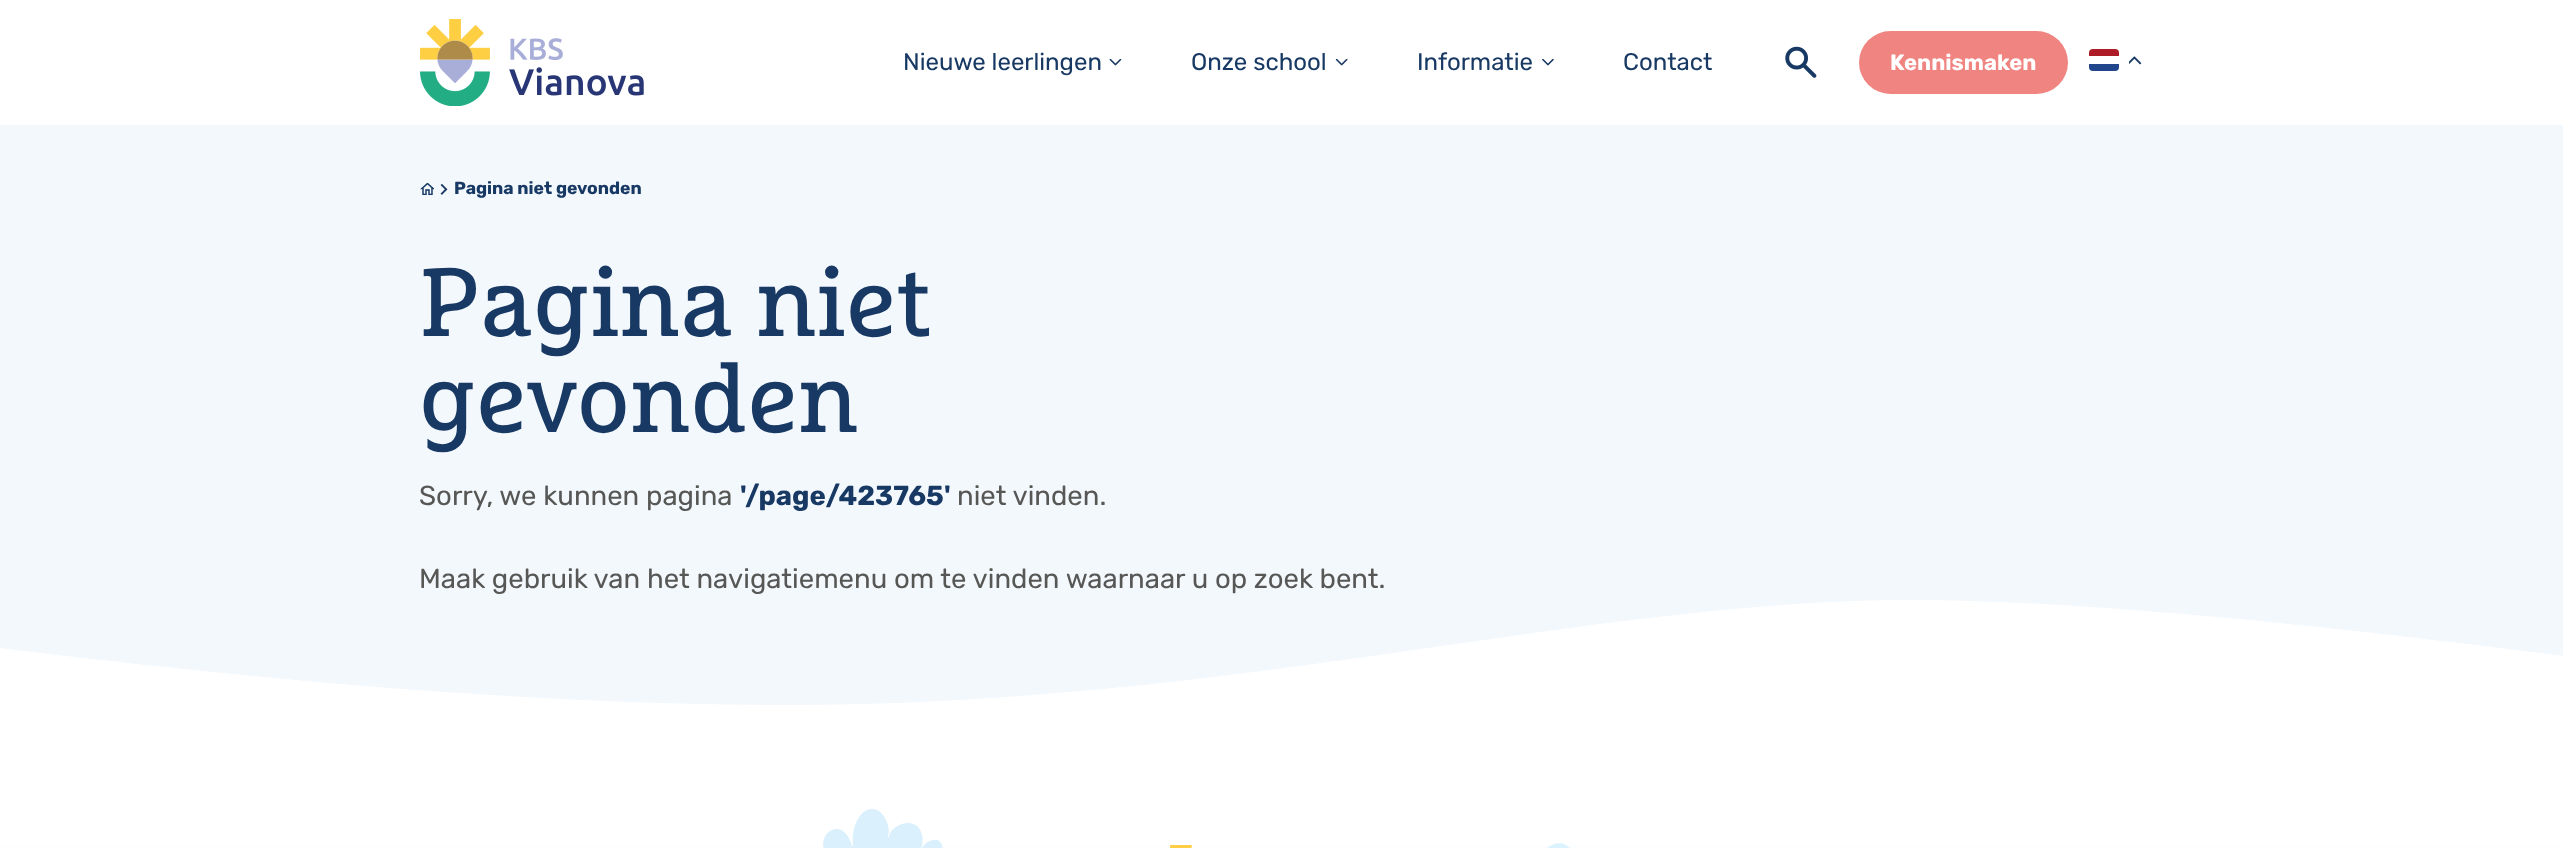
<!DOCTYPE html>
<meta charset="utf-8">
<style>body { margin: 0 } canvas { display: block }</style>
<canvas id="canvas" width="2563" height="848"></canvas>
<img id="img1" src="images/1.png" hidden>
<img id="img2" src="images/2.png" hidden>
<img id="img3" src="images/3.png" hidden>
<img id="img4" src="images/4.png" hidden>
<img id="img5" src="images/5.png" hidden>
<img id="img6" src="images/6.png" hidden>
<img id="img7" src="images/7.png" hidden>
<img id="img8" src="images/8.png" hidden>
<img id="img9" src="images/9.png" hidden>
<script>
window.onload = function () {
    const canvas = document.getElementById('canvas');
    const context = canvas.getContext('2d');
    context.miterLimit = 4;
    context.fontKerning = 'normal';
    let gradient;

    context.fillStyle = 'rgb(255, 255, 255)';
    context.fillRect(0, 0, 2563, 848);
    context.drawImage(document.getElementById('img1'), 420, 19, 224, 87);
    context.drawImage(document.getElementById('img2'), 1109, 59, 13, 7);
    context.drawImage(document.getElementById('img3'), 1335, 59, 13, 7);
    context.drawImage(document.getElementById('img4'), 1542, 59, 12, 7);
    context.drawImage(document.getElementById('img5'), 1785, 46, 32, 32);
    context.fillStyle = 'rgb(240, 132, 129)';
    context.beginPath();
    context.roundRect(1859, 31, 209, 63, 31.5);
    context.fill();
    context.fillStyle = 'rgb(33, 70, 139)';
    context.beginPath();
    context.roundRect(2089, 64, 30, 7, [0, 0, 4, 4]);
    context.fill();
    context.fillStyle = 'rgb(174, 28, 40)';
    context.beginPath();
    context.roundRect(2089, 49, 30, 7, [4, 4, 0, 0]);
    context.fill();
    context.drawImage(document.getElementById('img6'), 2129, 56, 13, 9);
    context.fillStyle = 'rgb(243, 248, 253)';
    context.fillRect(0, 125, 2563, 580);
    context.drawImage(document.getElementById('img7'), 420, 183, 14, 12);
    context.drawImage(document.getElementById('img8'), 440, 184, 8, 11);
    context.fillStyle = 'rgb(255, 255, 255)';
    context.beginPath();
    context.moveTo(0, 648);
    context.bezierCurveTo(308, 686, 570, 705, 787, 705);
    context.bezierCurveTo(1239, 705, 1587, 600, 1910, 600);
    context.bezierCurveTo(2058, 600, 2276, 619, 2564, 656);
    context.lineTo(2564, 705);
    context.lineTo(0, 705);
    context.closePath();
    context.fill();
    gradient = context.createLinearGradient(1282, 809, 1282, 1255);
    gradient.addColorStop(0, 'rgb(255, 255, 255)');
    gradient.addColorStop(0.4, 'rgb(243, 248, 253)');
    gradient.addColorStop(1, 'rgb(243, 248, 253)');
    context.fillStyle = gradient;
    context.fillRect(0, 846, 2563, 2);
    context.drawImage(document.getElementById('img9'), 823, 809, 747, 39);
    context.font = '300 24px "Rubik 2"';
    context.fillStyle = 'rgb(24, 57, 99)';
    context.fillText('Nieuwe leerlingen', 903, 70);
    context.fillText('Onze school', 1191, 70);
    context.fillText('Informatie', 1417, 70);
    context.fillText('Contact', 1623, 70);
    context.font = '300 22px Rubik';
    context.fillStyle = 'rgb(255, 255, 255)';
    context.fillText('Kennismaken', 1890, 70);
    context.font = '300 17.5px Rubik';
    context.fillStyle = 'rgb(24, 57, 99)';
    context.fillText('Pagina niet gevonden', 454, 194);
    context.font = '96.5px "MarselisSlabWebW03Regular"';
    context.fillText('Pagina niet', 419, 336);
    context.fillText('gevonden', 419, 432);
    context.font = '300 27.5px "Rubik 2"';
    context.fillStyle = 'rgb(87, 87, 86)';
    context.fillText('Sorry, we kunnen pagina', 419, 505);
    context.font = '300 27.5px Rubik';
    context.fillStyle = 'rgb(24, 57, 99)';
    context.fillText('\'/page/423765\'', 740, 505);
    context.font = '300 27.5px "Rubik 2"';
    context.fillStyle = 'rgb(87, 87, 86)';
    context.fillText('niet vinden.', 957, 505);
    context.fillText('Maak gebruik van het navigatiemenu om te vinden waarnaar u op zoek bent.', 419, 588);
};
</script>
